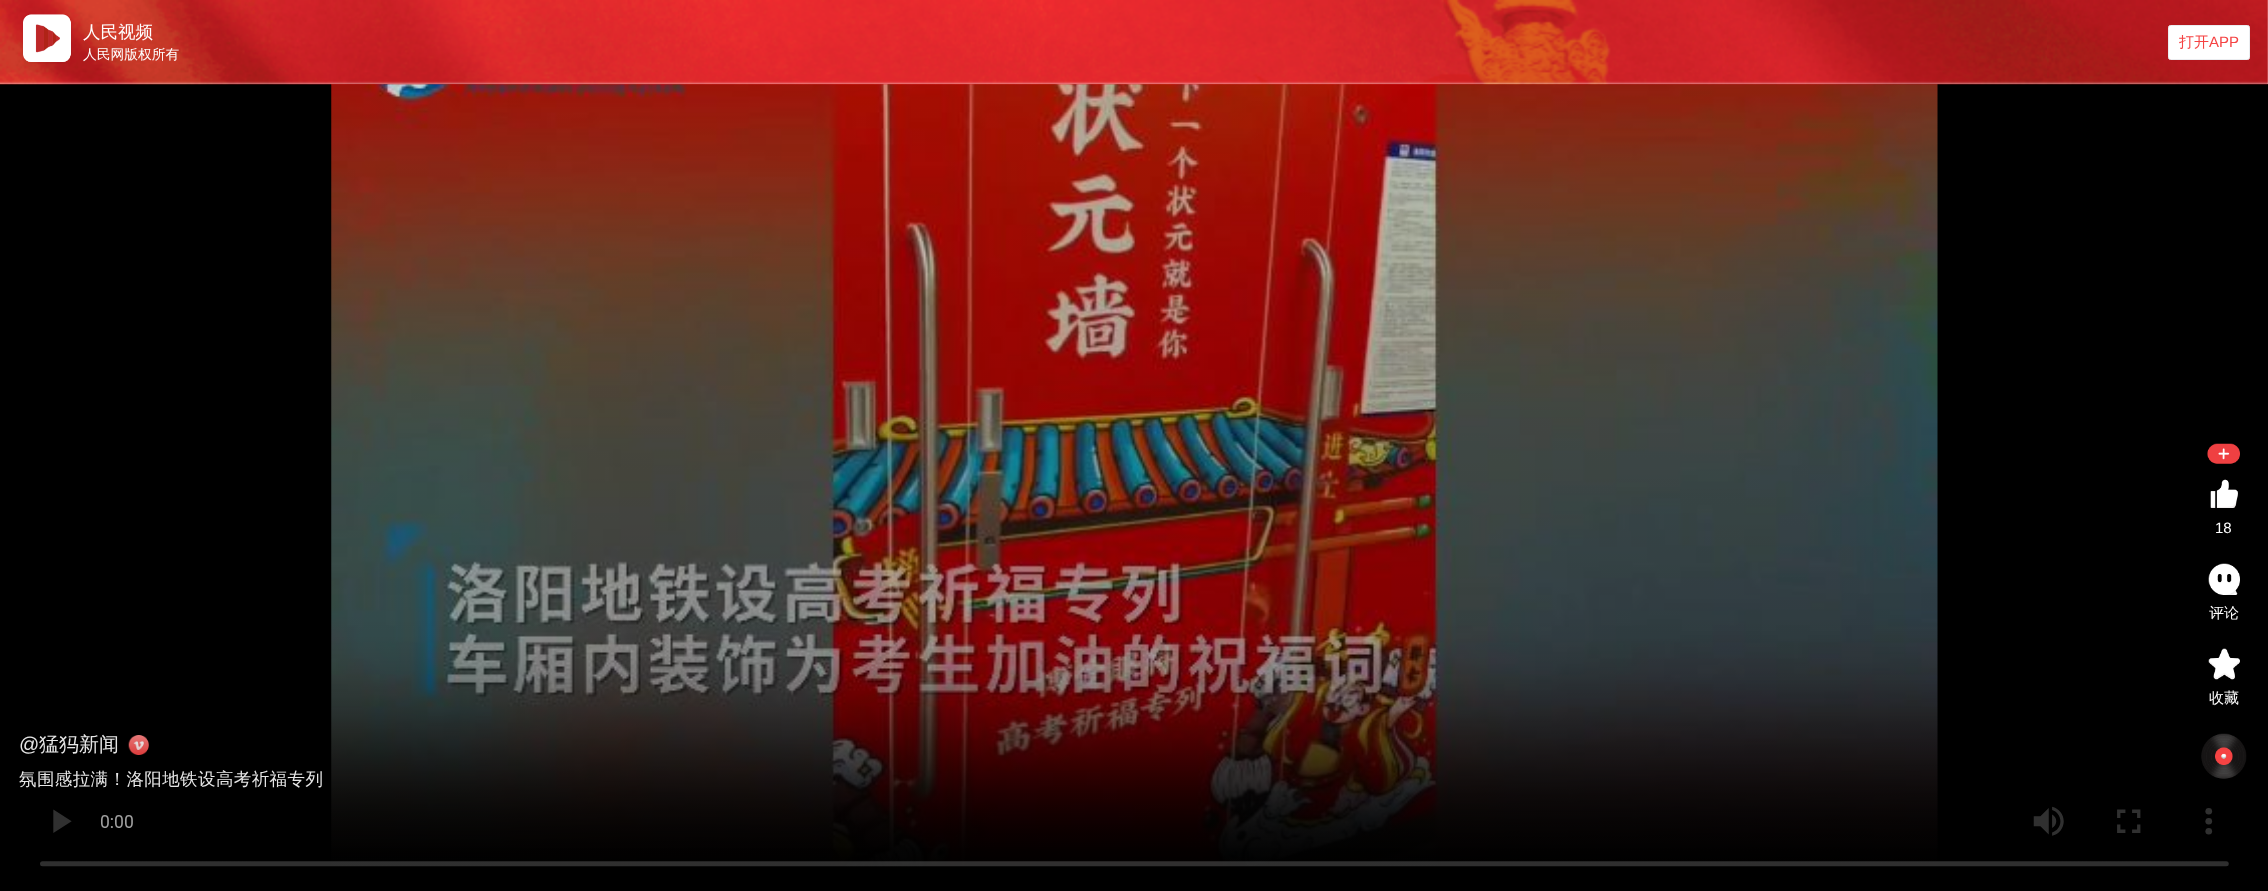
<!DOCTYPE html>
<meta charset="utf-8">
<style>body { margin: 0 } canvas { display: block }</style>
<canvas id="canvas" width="2268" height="891"></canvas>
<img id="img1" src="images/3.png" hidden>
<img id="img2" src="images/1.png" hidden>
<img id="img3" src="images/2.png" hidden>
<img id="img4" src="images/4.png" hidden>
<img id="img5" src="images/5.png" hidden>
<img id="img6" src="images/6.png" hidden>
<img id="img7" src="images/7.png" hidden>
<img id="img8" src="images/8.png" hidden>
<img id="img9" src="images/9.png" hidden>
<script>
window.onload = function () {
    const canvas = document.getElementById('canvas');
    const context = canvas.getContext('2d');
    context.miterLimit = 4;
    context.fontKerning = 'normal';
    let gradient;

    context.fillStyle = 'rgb(0, 0, 0)';
    context.fillRect(0, 0, 2268, 891);
    context.fillStyle = 'rgb(247, 247, 247)';
    context.fillRect(0, 0, 2268, 84);
    context.drawImage(document.getElementById('img1'), 40, 84, 2189, 783);
    gradient = context.createLinearGradient(1134, -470, 1134, 891);
    gradient.addColorStop(0, 'rgba(0, 0, 0, 0)');
    gradient.addColorStop(1, 'rgba(0, 0, 0, 0.4)');
    gradient.addColorStop(1, 'rgba(0, 0, 0, 0.6)');
    context.fillStyle = gradient;
    context.fillRect(40, 84, 2189, 783);
    context.drawImage(document.getElementById('img2'), 0, 0, 2268, 85);
    context.drawImage(document.getElementById('img3'), 22, 14, 50, 50);
    context.fillStyle = 'rgb(255, 255, 255)';
    context.beginPath();
    context.roundRect(2168.5, 25.5, 81, 34, 2);
    context.fill();
    context.strokeStyle = 'rgb(235, 237, 240)';
    context.stroke();
    context.drawImage(document.getElementById('img4'), 2207, 443, 33, 21);
    context.drawImage(document.getElementById('img5'), 2210, 479, 28, 29);
    context.drawImage(document.getElementById('img6'), 2208, 563, 32, 32);
    context.drawImage(document.getElementById('img7'), 2208, 648, 32, 32);
    context.drawImage(document.getElementById('img8'), 2201, 733, 46, 46);
    context.drawImage(document.getElementById('img9'), 128, 735, 21, 20);
    context.font = '500 17.5px WenQuanYi Zen Hei';
    context.fillText('人民视频', 83, 38);
    context.font = '500 13.75px WenQuanYi Zen Hei';
    context.fillText('人民网版权所有', 83, 59);
    context.font = '500 15px WenQuanYi Zen Hei';
    context.fillStyle = 'rgb(245, 67, 67)';
    context.fillText('打开', 2179, 47);
    context.font = '15px Liberation Sans';
    context.fillText('APP', 2209, 47);
    context.fillStyle = 'rgb(255, 255, 255)';
    context.fillText('18', 2215, 533);
    context.font = '500 15px WenQuanYi Zen Hei';
    context.fillText('评论', 2209, 618);
    context.fillText('收藏', 2209, 703);
    context.font = '20px Liberation Sans';
    context.fillStyle = 'rgb(230, 230, 230)';
    context.fillText('@', 19, 751);
    context.font = '500 20px WenQuanYi Zen Hei';
    context.fillText('猛犸新闻', 39, 751);
    context.letterSpacing = '0.4px';
    context.font = '500 17.5px WenQuanYi Zen Hei';
    context.fillText('氛围感拉满！洛阳地铁设高考祈福专列', 19, 785);
};
</script>
